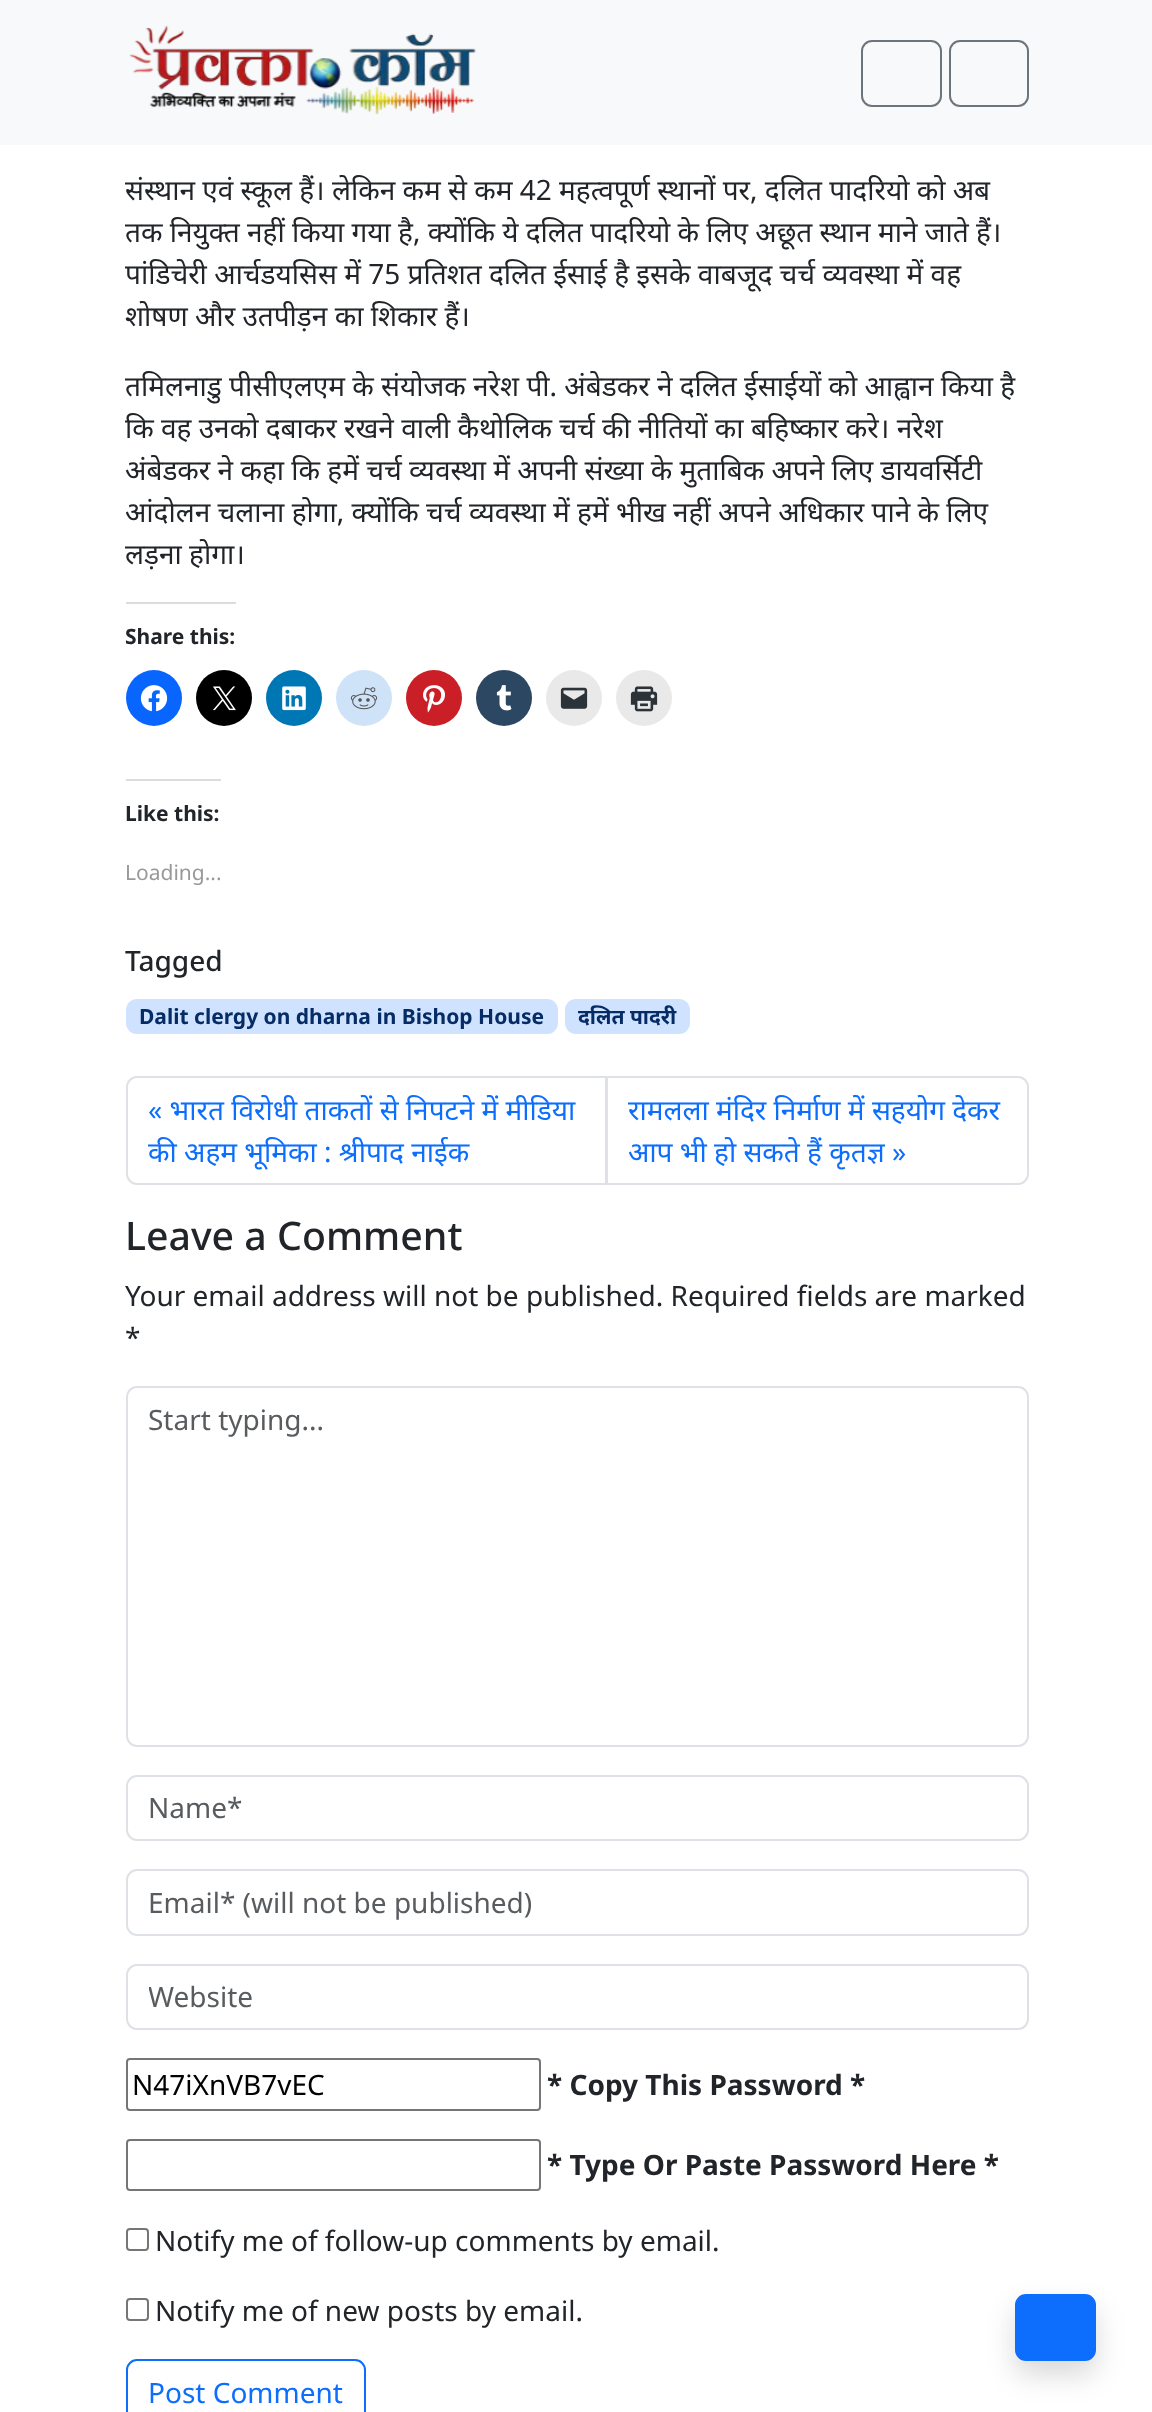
<!DOCTYPE html>
<meta charset="utf-8">
<style>body { margin: 0 } canvas { display: block }</style>
<canvas id="canvas" width="1152" height="2412"></canvas>
<img id="img1" src="images/1.png" hidden>
<img id="img2" src="images/2.png" hidden>
<img id="img3" src="images/3.png" hidden>
<img id="img4" src="images/4.png" hidden>
<img id="img5" src="images/5.png" hidden>
<img id="img6" src="images/6.png" hidden>
<img id="img7" src="images/7.png" hidden>
<img id="img8" src="images/8.png" hidden>
<img id="img9" src="images/9.png" hidden>
<script>
window.onload = function () {
    const canvas = document.getElementById('canvas');
    const context = canvas.getContext('2d');
    context.miterLimit = 4;
    context.fontKerning = 'normal';

    context.fillStyle = 'rgb(255, 255, 255)';
    context.fillRect(0, 0, 1152, 2412);
    context.fillStyle = 'rgb(248, 249, 250)';
    context.fillRect(0, 0, 1152, 145);
    context.drawImage(document.getElementById('img1'), 129, 25, 347, 90);
    context.beginPath();
    context.roundRect(862, 41, 79, 65, 10);
    context.strokeStyle = 'rgb(108, 117, 125)';
    context.lineWidth = 2;
    context.stroke();
    context.beginPath();
    context.roundRect(950, 41, 78, 65, 10);
    context.stroke();
    context.fillStyle = 'rgb(220, 220, 222)';
    context.fillRect(126, 602, 110, 2);
    context.fillStyle = 'rgb(8, 102, 255)';
    context.beginPath();
    context.arc(154, 698, 28, 0, 2 * Math.PI);
    context.fill();
    context.drawImage(document.getElementById('img2'), 140, 685, 28, 27);
    context.fillStyle = 'rgb(0, 0, 0)';
    context.beginPath();
    context.arc(224, 698, 28, 0, 2 * Math.PI);
    context.fill();
    context.drawImage(document.getElementById('img3'), 213, 686, 23, 25);
    context.fillStyle = 'rgb(0, 119, 181)';
    context.beginPath();
    context.arc(294, 698, 28, 0, 2 * Math.PI);
    context.fill();
    context.drawImage(document.getElementById('img4'), 282, 686, 24, 25);
    context.fillStyle = 'rgb(206, 227, 248)';
    context.beginPath();
    context.arc(364, 698, 28, 0, 2 * Math.PI);
    context.fill();
    context.drawImage(document.getElementById('img5'), 350, 687, 28, 23);
    context.fillStyle = 'rgb(202, 31, 39)';
    context.beginPath();
    context.arc(434, 698, 28, 0, 2 * Math.PI);
    context.fill();
    context.drawImage(document.getElementById('img6'), 423, 685, 22, 28);
    context.fillStyle = 'rgb(44, 71, 98)';
    context.beginPath();
    context.arc(504, 698, 28, 0, 2 * Math.PI);
    context.fill();
    context.drawImage(document.getElementById('img7'), 496, 685, 16, 26);
    context.fillStyle = 'rgb(233, 233, 233)';
    context.beginPath();
    context.arc(574, 698, 28, 0, 2 * Math.PI);
    context.fill();
    context.drawImage(document.getElementById('img8'), 560, 687, 28, 22);
    context.beginPath();
    context.arc(644, 698, 28, 0, 2 * Math.PI);
    context.fill();
    context.drawImage(document.getElementById('img9'), 630, 686, 28, 26);
    context.fillStyle = 'rgb(220, 220, 222)';
    context.fillRect(126, 779, 95, 2);
    context.fillStyle = 'rgb(207, 226, 255)';
    context.beginPath();
    context.roundRect(126, 999, 432, 35, 11);
    context.fill();
    context.beginPath();
    context.roundRect(565, 999, 125, 35, 11);
    context.fill();
    context.beginPath();
    context.roundRect(127, 1077, 479, 107, [10, 0, 0, 10]);
    context.strokeStyle = 'rgb(222, 226, 230)';
    context.stroke();
    context.fillStyle = 'rgb(255, 255, 255)';
    context.beginPath();
    context.roundRect(607, 1077, 421, 107, [0, 10, 10, 0]);
    context.fill();
    context.stroke();
    context.beginPath();
    context.roundRect(127, 1387, 901, 359, 10);
    context.stroke();
    context.beginPath();
    context.roundRect(127, 1776, 901, 64, 10);
    context.stroke();
    context.beginPath();
    context.roundRect(127, 1870, 901, 65, 10);
    context.stroke();
    context.beginPath();
    context.roundRect(127, 1965, 901, 64, 10);
    context.stroke();
    context.beginPath();
    context.roundRect(127, 2059, 413, 51, 3);
    context.strokeStyle = 'rgb(118, 118, 118)';
    context.stroke();
    context.beginPath();
    context.roundRect(127, 2140, 413, 50, 3);
    context.stroke();
    context.beginPath();
    context.roundRect(127, 2229, 21, 21, 3);
    context.stroke();
    context.beginPath();
    context.roundRect(127, 2299, 21, 21, 3);
    context.stroke();
    context.beginPath();
    context.roundRect(127, 2360, 238, 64, 10);
    context.strokeStyle = 'rgb(13, 110, 253)';
    context.stroke();
    context.fillStyle = 'rgba(0, 0, 0, 0.15)';
    context.filter = 'blur(14px)';
    context.beginPath();
    context.roundRect(1015, 2308, 81, 67, 11);
    context.fill();
    context.filter = 'none';
    context.fillStyle = 'rgb(13, 110, 253)';
    context.beginPath();
    context.roundRect(1016, 2295, 79, 65, 10);
    context.fill();
    context.stroke();
    context.font = '28px Noto Sans';
    context.fillStyle = 'rgb(33, 37, 41)';
    context.fillText('संस्थान एवं स्कूल हैं। लेकिन कम से कम 42 महत्वपूर्ण स्थानों पर, दलित पादरियाे काे अब', 125, 200);
    context.fillText('तक नियुक्त नहीं किया गया है, क्योंकि ये दलित पादरियाे के लिए अछूत स्थान माने जाते हैं।', 125, 242);
    context.fillText('पांडिचेरी आर्चडयसिस में 75 प्रतिशत दलित ईसाई है इसके वाबजूद चर्च व्यवस्था में वह', 125, 284);
    context.fillText('शाेषण और उतपीड़न का शिकार हैं।', 125, 326);
    context.fillText('तमिलनाडु पीसीएलएम के संयोजक नरेश पी. अंबेडकर ने दलित ईसाईयों को आह्वान किया है', 125, 396);
    context.fillText('कि वह उनको दबाकर रखने वाली कैथोलिक चर्च की नीतियों का बहिष्कार करे। नरेश', 125, 438);
    context.fillText('अंबेडकर ने कहा कि हमें चर्च व्यवस्था में अपनी संख्या के मुताबिक अपने लिए डायवर्सिटी', 125, 480);
    context.fillText('आंदोलन चलाना होगा, क्योंकि चर्च व्यवस्था में हमें भीख नहीं अपने अधिकार पाने के लिए', 125, 522);
    context.fillText('लड़ना हाेगा।', 125, 564);
    context.font = 'bold 21px Noto Sans';
    context.fillText('Share this:', 125, 644);
    context.fillText('Like this:', 125, 821);
    context.font = '21px Noto Sans';
    context.fillStyle = 'rgb(153, 153, 153)';
    context.fillText('Loading...', 125, 880);
    context.font = '500 28px Noto Sans';
    context.fillStyle = 'rgb(33, 37, 41)';
    context.fillText('Tagged', 125, 971);
    context.font = 'bold 21px Noto Sans';
    context.fillStyle = 'rgb(5, 44, 101)';
    context.fillText('Dalit clergy on dharna in Bishop House', 139, 1024);
    context.fillText('दलित पादरी', 578, 1024);
    context.font = '28px Noto Sans';
    context.fillStyle = 'rgb(13, 110, 253)';
    context.fillText('« भारत विरोधी ताकतों से निपटने में मीडिया', 148, 1120);
    context.fillText('की अहम भूमिका : श्रीपाद नाईक', 148, 1162);
    context.fillText('रामलला मंदिर निर्माण में सहयोग देकर', 628, 1120);
    context.fillText('आप भी हो सकते हैं कृतज्ञ »', 628, 1162);
    context.font = '500 39.25px Noto Sans';
    context.fillStyle = 'rgb(33, 37, 41)';
    context.fillText('Leave a Comment', 125, 1250);
    context.font = '28px Noto Sans';
    context.fillText('Your email address will not be published. Required fields are marked', 125, 1306);
    context.fillText('*', 125, 1348);
    context.fillStyle = 'rgb(89, 92, 95)';
    context.fillText('Start typing...', 148, 1430);
    context.fillText('Name*', 148, 1818);
    context.fillText('Email* (will not be published)', 148, 1913);
    context.save();
    context.beginPath();
    context.rect(149, 1978, 857, 38);
    context.clip();
    context.fillText('Website', 148, 2007);
    context.restore();
    context.fillStyle = 'rgb(0, 0, 0)';
    context.fillText('N47iXnVB7vEC', 132, 2095);
    context.font = 'bold 28px Noto Sans';
    context.fillStyle = 'rgb(33, 37, 41)';
    context.fillText('* Copy This Password *', 547, 2095);
    context.fillText('* Type Or Paste Password Here *', 547, 2175);
    context.font = '28px Noto Sans';
    context.fillText('Notify me of follow-up comments by email.', 155, 2251);
    context.fillText('Notify me of new posts by email.', 155, 2321);
    context.fillStyle = 'rgb(13, 110, 253)';
    context.fillText('Post Comment', 148, 2403);
};
</script>
